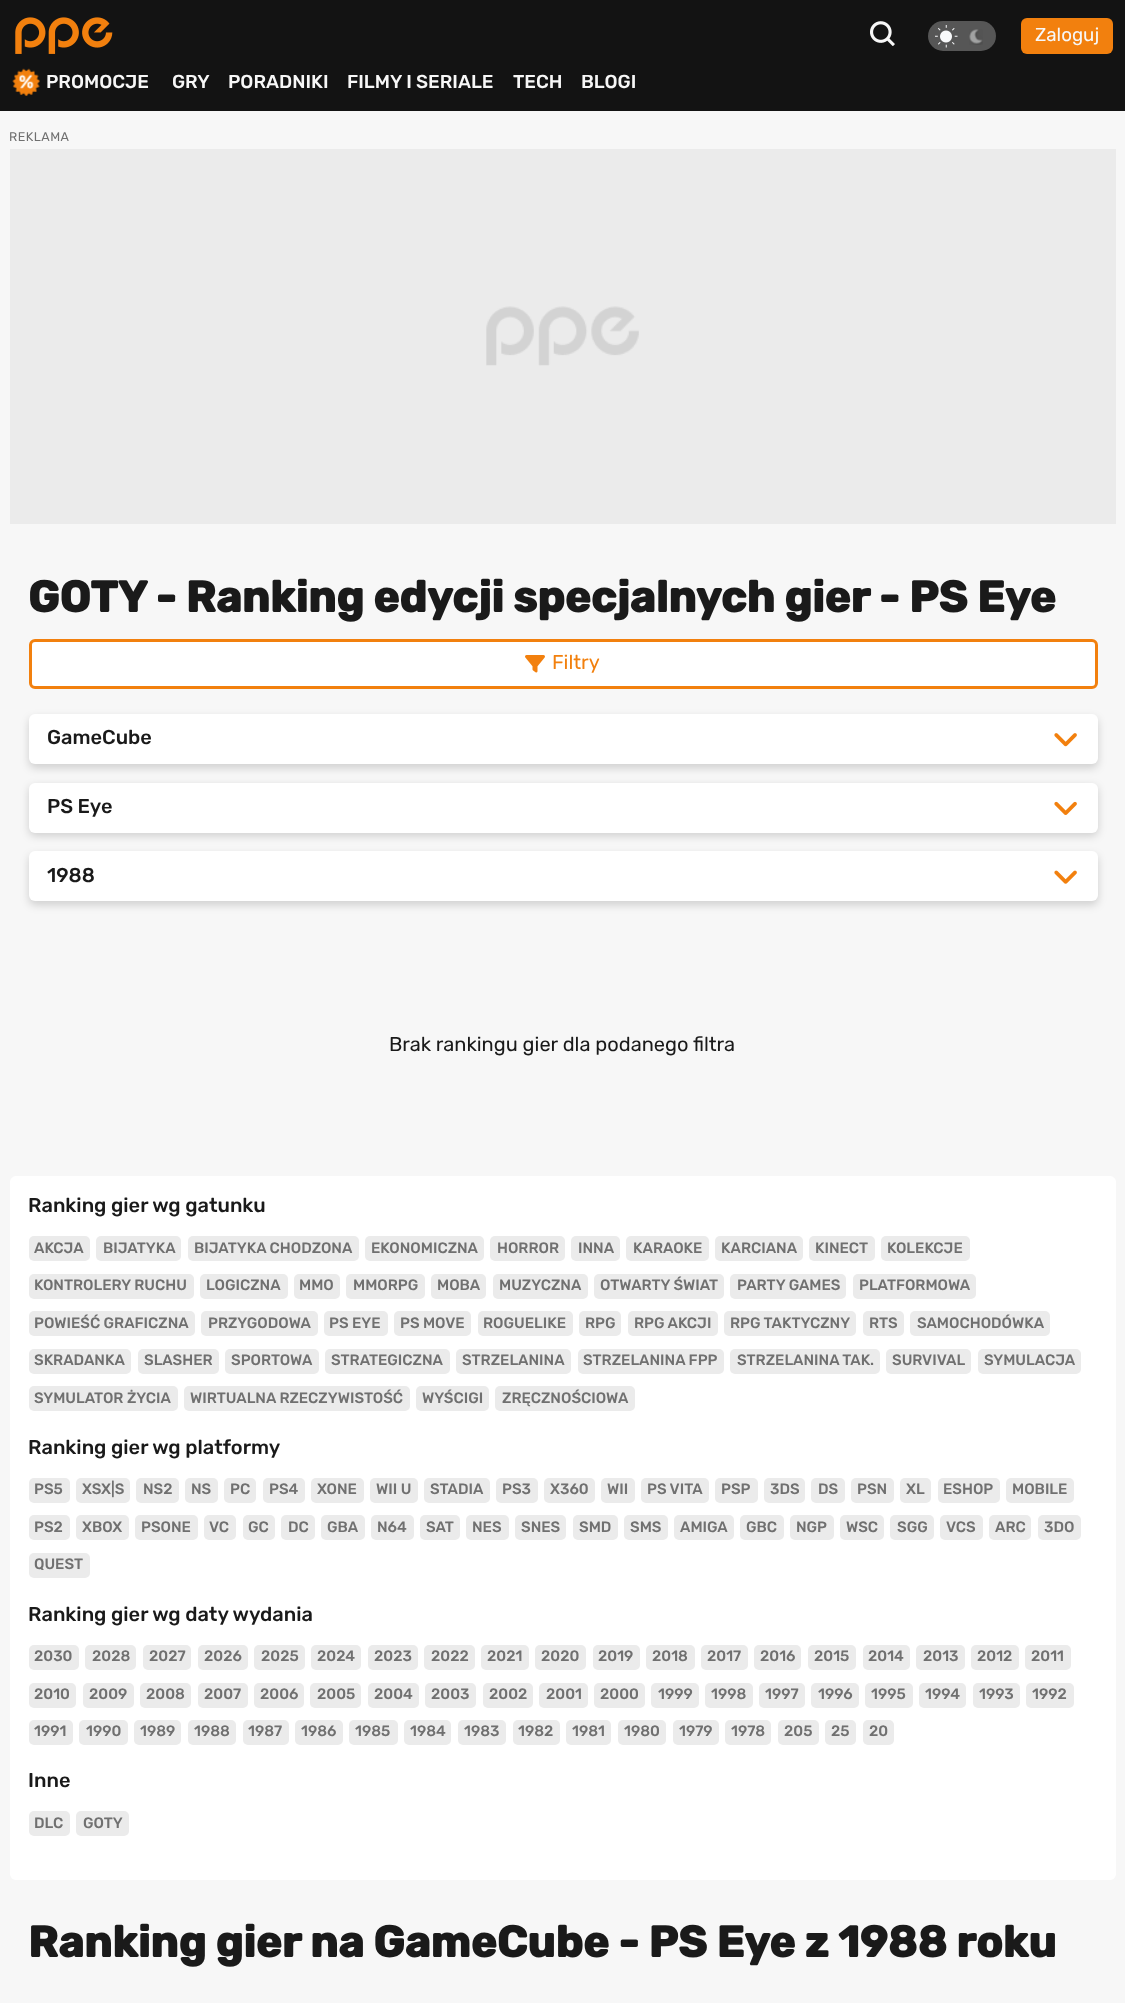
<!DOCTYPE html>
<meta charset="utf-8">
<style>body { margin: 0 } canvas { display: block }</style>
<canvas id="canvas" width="1125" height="2003"></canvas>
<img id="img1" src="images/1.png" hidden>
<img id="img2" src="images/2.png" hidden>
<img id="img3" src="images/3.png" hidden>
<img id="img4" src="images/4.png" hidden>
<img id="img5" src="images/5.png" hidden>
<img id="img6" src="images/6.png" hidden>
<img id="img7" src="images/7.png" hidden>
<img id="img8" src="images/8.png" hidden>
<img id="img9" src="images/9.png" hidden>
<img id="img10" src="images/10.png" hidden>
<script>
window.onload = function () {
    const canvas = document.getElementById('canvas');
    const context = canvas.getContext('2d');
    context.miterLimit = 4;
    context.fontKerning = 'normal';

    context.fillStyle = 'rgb(247, 247, 247)';
    context.fillRect(0, 0, 1125, 2003);
    context.fillStyle = 'rgb(19, 19, 19)';
    context.fillRect(0, 0, 1125, 111);
    context.drawImage(document.getElementById('img1'), 15, 17, 98, 37);
    context.drawImage(document.getElementById('img2'), 870, 21, 25, 25);
    context.fillStyle = 'rgb(86, 86, 86)';
    context.beginPath();
    context.roundRect(928, 21, 68, 30, 15);
    context.fill();
    context.drawImage(document.getElementById('img3'), 935, 25, 23, 23);
    context.drawImage(document.getElementById('img4'), 969, 29, 14, 16);
    context.fillStyle = 'rgb(242, 128, 14)';
    context.beginPath();
    context.roundRect(1021, 18, 92, 36, 6);
    context.fill();
    context.drawImage(document.getElementById('img5'), 12, 68, 28, 28);
    context.fillStyle = 'rgb(235, 235, 235)';
    context.fillRect(10, 149, 1106, 375);
    context.drawImage(document.getElementById('img6'), 486, 306, 153, 60);
    context.fillStyle = 'rgb(255, 255, 255)';
    context.beginPath();
    context.roundRect(30.5, 640.5, 1066, 47, 4.5);
    context.fill();
    context.strokeStyle = 'rgb(242, 128, 14)';
    context.lineWidth = 3;
    context.stroke();
    context.drawImage(document.getElementById('img7'), 525, 655, 20, 18);
    context.fillStyle = 'rgba(0, 0, 0, 0.16)';
    context.filter = 'blur(4px)';
    context.beginPath();
    context.roundRect(29, 718, 1069, 50, 6);
    context.fill();
    context.filter = 'none';
    context.fillStyle = 'rgb(255, 255, 255)';
    context.beginPath();
    context.roundRect(29, 714, 1069, 50, 6);
    context.fill();
    context.drawImage(document.getElementById('img8'), 1054, 733, 23, 14);
    context.fillStyle = 'rgba(0, 0, 0, 0.16)';
    context.filter = 'blur(4px)';
    context.beginPath();
    context.roundRect(29, 786, 1069, 50, 6);
    context.fill();
    context.filter = 'none';
    context.fillStyle = 'rgb(255, 255, 255)';
    context.beginPath();
    context.roundRect(29, 783, 1069, 50, 6);
    context.fill();
    context.drawImage(document.getElementById('img9'), 1054, 801, 23, 14);
    context.fillStyle = 'rgba(0, 0, 0, 0.16)';
    context.filter = 'blur(4px)';
    context.beginPath();
    context.roundRect(29, 855, 1069, 50, 6);
    context.fill();
    context.filter = 'none';
    context.fillStyle = 'rgb(255, 255, 255)';
    context.beginPath();
    context.roundRect(29, 851, 1069, 50, 6);
    context.fill();
    context.drawImage(document.getElementById('img10'), 1054, 870, 23, 14);
    context.beginPath();
    context.roundRect(10, 1176, 1106, 704, 6);
    context.fill();
    context.fillStyle = 'rgb(235, 235, 235)';
    context.beginPath();
    context.roundRect(29, 1236, 61, 25, 5);
    context.fill();
    context.beginPath();
    context.roundRect(96, 1236, 85, 25, 5);
    context.fill();
    context.beginPath();
    context.roundRect(188, 1236, 171, 25, 5);
    context.fill();
    context.beginPath();
    context.roundRect(365, 1236, 119, 25, 5);
    context.fill();
    context.beginPath();
    context.roundRect(490, 1236, 75, 25, 5);
    context.fill();
    context.beginPath();
    context.roundRect(571, 1236, 49, 25, 5);
    context.fill();
    context.beginPath();
    context.roundRect(626, 1236, 83, 25, 5);
    context.fill();
    context.beginPath();
    context.roundRect(715, 1236, 88, 25, 5);
    context.fill();
    context.beginPath();
    context.roundRect(809, 1236, 66, 25, 5);
    context.fill();
    context.beginPath();
    context.roundRect(881, 1236, 89, 25, 5);
    context.fill();
    context.beginPath();
    context.roundRect(29, 1274, 165, 25, 5);
    context.fill();
    context.beginPath();
    context.roundRect(200, 1274, 88, 25, 5);
    context.fill();
    context.beginPath();
    context.roundRect(294, 1274, 46, 25, 5);
    context.fill();
    context.beginPath();
    context.roundRect(346, 1274, 79, 25, 5);
    context.fill();
    context.beginPath();
    context.roundRect(431, 1274, 55, 25, 5);
    context.fill();
    context.beginPath();
    context.roundRect(493, 1274, 95, 25, 5);
    context.fill();
    context.beginPath();
    context.roundRect(594, 1274, 130, 25, 5);
    context.fill();
    context.beginPath();
    context.roundRect(730, 1274, 116, 25, 5);
    context.fill();
    context.beginPath();
    context.roundRect(853, 1274, 123, 25, 5);
    context.fill();
    context.beginPath();
    context.roundRect(29, 1311, 166, 25, 5);
    context.fill();
    context.beginPath();
    context.roundRect(201, 1311, 117, 25, 5);
    context.fill();
    context.beginPath();
    context.roundRect(324, 1311, 64, 25, 5);
    context.fill();
    context.beginPath();
    context.roundRect(394, 1311, 77, 25, 5);
    context.fill();
    context.beginPath();
    context.roundRect(478, 1311, 95, 25, 5);
    context.fill();
    context.beginPath();
    context.roundRect(579, 1311, 42, 25, 5);
    context.fill();
    context.beginPath();
    context.roundRect(628, 1311, 90, 25, 5);
    context.fill();
    context.beginPath();
    context.roundRect(724, 1311, 132, 25, 5);
    context.fill();
    context.beginPath();
    context.roundRect(863, 1311, 41, 25, 5);
    context.fill();
    context.beginPath();
    context.roundRect(910, 1311, 140, 25, 5);
    context.fill();
    context.beginPath();
    context.roundRect(29, 1349, 102, 25, 5);
    context.fill();
    context.beginPath();
    context.roundRect(138, 1349, 81, 25, 5);
    context.fill();
    context.beginPath();
    context.roundRect(225, 1349, 94, 25, 5);
    context.fill();
    context.beginPath();
    context.roundRect(325, 1349, 125, 25, 5);
    context.fill();
    context.beginPath();
    context.roundRect(456, 1349, 115, 25, 5);
    context.fill();
    context.beginPath();
    context.roundRect(578, 1349, 146, 25, 5);
    context.fill();
    context.beginPath();
    context.roundRect(730, 1349, 150, 25, 5);
    context.fill();
    context.beginPath();
    context.roundRect(886, 1349, 85, 25, 5);
    context.fill();
    context.beginPath();
    context.roundRect(978, 1349, 103, 25, 5);
    context.fill();
    context.beginPath();
    context.roundRect(29, 1386, 149, 25, 5);
    context.fill();
    context.beginPath();
    context.roundRect(184, 1386, 226, 25, 5);
    context.fill();
    context.beginPath();
    context.roundRect(416, 1386, 73, 25, 5);
    context.fill();
    context.beginPath();
    context.roundRect(495, 1386, 140, 25, 5);
    context.fill();
    context.beginPath();
    context.roundRect(29, 1478, 41, 25, 5);
    context.fill();
    context.beginPath();
    context.roundRect(76, 1478, 54, 25, 5);
    context.fill();
    context.beginPath();
    context.roundRect(136, 1478, 43, 25, 5);
    context.fill();
    context.beginPath();
    context.roundRect(185, 1478, 33, 25, 5);
    context.fill();
    context.beginPath();
    context.roundRect(224, 1478, 32, 25, 5);
    context.fill();
    context.beginPath();
    context.roundRect(263, 1478, 42, 25, 5);
    context.fill();
    context.beginPath();
    context.roundRect(311, 1478, 53, 25, 5);
    context.fill();
    context.beginPath();
    context.roundRect(370, 1478, 48, 25, 5);
    context.fill();
    context.beginPath();
    context.roundRect(424, 1478, 66, 25, 5);
    context.fill();
    context.beginPath();
    context.roundRect(496, 1478, 42, 25, 5);
    context.fill();
    context.beginPath();
    context.roundRect(544, 1478, 51, 25, 5);
    context.fill();
    context.beginPath();
    context.roundRect(601, 1478, 34, 25, 5);
    context.fill();
    context.beginPath();
    context.roundRect(641, 1478, 68, 25, 5);
    context.fill();
    context.beginPath();
    context.roundRect(715, 1478, 43, 25, 5);
    context.fill();
    context.beginPath();
    context.roundRect(764, 1478, 41, 25, 5);
    context.fill();
    context.beginPath();
    context.roundRect(811, 1478, 34, 25, 5);
    context.fill();
    context.beginPath();
    context.roundRect(851, 1478, 43, 25, 5);
    context.fill();
    context.beginPath();
    context.roundRect(900, 1478, 31, 25, 5);
    context.fill();
    context.beginPath();
    context.roundRect(938, 1478, 62, 25, 5);
    context.fill();
    context.beginPath();
    context.roundRect(1006, 1478, 68, 25, 5);
    context.fill();
    context.beginPath();
    context.roundRect(29, 1515, 41, 25, 5);
    context.fill();
    context.beginPath();
    context.roundRect(76, 1515, 53, 25, 5);
    context.fill();
    context.beginPath();
    context.roundRect(135, 1515, 63, 25, 5);
    context.fill();
    context.beginPath();
    context.roundRect(204, 1515, 32, 25, 5);
    context.fill();
    context.beginPath();
    context.roundRect(243, 1515, 32, 25, 5);
    context.fill();
    context.beginPath();
    context.roundRect(281, 1515, 34, 25, 5);
    context.fill();
    context.beginPath();
    context.roundRect(321, 1515, 44, 25, 5);
    context.fill();
    context.beginPath();
    context.roundRect(371, 1515, 43, 25, 5);
    context.fill();
    context.beginPath();
    context.roundRect(420, 1515, 40, 25, 5);
    context.fill();
    context.beginPath();
    context.roundRect(466, 1515, 43, 25, 5);
    context.fill();
    context.beginPath();
    context.roundRect(515, 1515, 51, 25, 5);
    context.fill();
    context.beginPath();
    context.roundRect(573, 1515, 45, 25, 5);
    context.fill();
    context.beginPath();
    context.roundRect(624, 1515, 44, 25, 5);
    context.fill();
    context.beginPath();
    context.roundRect(674, 1515, 60, 25, 5);
    context.fill();
    context.beginPath();
    context.roundRect(740, 1515, 44, 25, 5);
    context.fill();
    context.beginPath();
    context.roundRect(790, 1515, 44, 25, 5);
    context.fill();
    context.beginPath();
    context.roundRect(840, 1515, 44, 25, 5);
    context.fill();
    context.beginPath();
    context.roundRect(890, 1515, 44, 25, 5);
    context.fill();
    context.beginPath();
    context.roundRect(940, 1515, 43, 25, 5);
    context.fill();
    context.beginPath();
    context.roundRect(989, 1515, 42, 25, 5);
    context.fill();
    context.beginPath();
    context.roundRect(1038, 1515, 43, 25, 5);
    context.fill();
    context.beginPath();
    context.roundRect(29, 1553, 61, 25, 5);
    context.fill();
    context.beginPath();
    context.roundRect(29, 1645, 50, 25, 5);
    context.fill();
    context.beginPath();
    context.roundRect(85, 1645, 51, 25, 5);
    context.fill();
    context.beginPath();
    context.roundRect(143, 1645, 48, 25, 5);
    context.fill();
    context.beginPath();
    context.roundRect(198, 1645, 50, 25, 5);
    context.fill();
    context.beginPath();
    context.roundRect(254, 1645, 51, 25, 5);
    context.fill();
    context.beginPath();
    context.roundRect(311, 1645, 50, 25, 5);
    context.fill();
    context.beginPath();
    context.roundRect(368, 1645, 50, 25, 5);
    context.fill();
    context.beginPath();
    context.roundRect(424, 1645, 51, 25, 5);
    context.fill();
    context.beginPath();
    context.roundRect(481, 1645, 48, 25, 5);
    context.fill();
    context.beginPath();
    context.roundRect(535, 1645, 51, 25, 5);
    context.fill();
    context.beginPath();
    context.roundRect(593, 1645, 47, 25, 5);
    context.fill();
    context.beginPath();
    context.roundRect(646, 1645, 49, 25, 5);
    context.fill();
    context.beginPath();
    context.roundRect(701, 1645, 47, 25, 5);
    context.fill();
    context.beginPath();
    context.roundRect(754, 1645, 47, 25, 5);
    context.fill();
    context.beginPath();
    context.roundRect(808, 1645, 48, 25, 5);
    context.fill();
    context.beginPath();
    context.roundRect(863, 1645, 47, 25, 5);
    context.fill();
    context.beginPath();
    context.roundRect(916, 1645, 49, 25, 5);
    context.fill();
    context.beginPath();
    context.roundRect(971, 1645, 48, 25, 5);
    context.fill();
    context.beginPath();
    context.roundRect(1025, 1645, 46, 25, 5);
    context.fill();
    context.beginPath();
    context.roundRect(29, 1683, 47, 25, 5);
    context.fill();
    context.beginPath();
    context.roundRect(83, 1683, 51, 25, 5);
    context.fill();
    context.beginPath();
    context.roundRect(140, 1683, 51, 25, 5);
    context.fill();
    context.beginPath();
    context.roundRect(198, 1683, 50, 25, 5);
    context.fill();
    context.beginPath();
    context.roundRect(254, 1683, 50, 25, 5);
    context.fill();
    context.beginPath();
    context.roundRect(310, 1683, 51, 25, 5);
    context.fill();
    context.beginPath();
    context.roundRect(368, 1683, 51, 25, 5);
    context.fill();
    context.beginPath();
    context.roundRect(425, 1683, 51, 25, 5);
    context.fill();
    context.beginPath();
    context.roundRect(483, 1683, 50, 25, 5);
    context.fill();
    context.beginPath();
    context.roundRect(539, 1683, 49, 25, 5);
    context.fill();
    context.beginPath();
    context.roundRect(594, 1683, 51, 25, 5);
    context.fill();
    context.beginPath();
    context.roundRect(651, 1683, 48, 25, 5);
    context.fill();
    context.beginPath();
    context.roundRect(705, 1683, 48, 25, 5);
    context.fill();
    context.beginPath();
    context.roundRect(759, 1683, 46, 25, 5);
    context.fill();
    context.beginPath();
    context.roundRect(811, 1683, 48, 25, 5);
    context.fill();
    context.beginPath();
    context.roundRect(865, 1683, 48, 25, 5);
    context.fill();
    context.beginPath();
    context.roundRect(919, 1683, 47, 25, 5);
    context.fill();
    context.beginPath();
    context.roundRect(973, 1683, 47, 25, 5);
    context.fill();
    context.beginPath();
    context.roundRect(1026, 1683, 48, 25, 5);
    context.fill();
    context.beginPath();
    context.roundRect(29, 1720, 44, 25, 5);
    context.fill();
    context.beginPath();
    context.roundRect(79, 1720, 49, 25, 5);
    context.fill();
    context.beginPath();
    context.roundRect(134, 1720, 47, 25, 5);
    context.fill();
    context.beginPath();
    context.roundRect(188, 1720, 48, 25, 5);
    context.fill();
    context.beginPath();
    context.roundRect(243, 1720, 46, 25, 5);
    context.fill();
    context.beginPath();
    context.roundRect(295, 1720, 48, 25, 5);
    context.fill();
    context.beginPath();
    context.roundRect(349, 1720, 49, 25, 5);
    context.fill();
    context.beginPath();
    context.roundRect(404, 1720, 47, 25, 5);
    context.fill();
    context.beginPath();
    context.roundRect(458, 1720, 48, 25, 5);
    context.fill();
    context.beginPath();
    context.roundRect(513, 1720, 47, 25, 5);
    context.fill();
    context.beginPath();
    context.roundRect(566, 1720, 45, 25, 5);
    context.fill();
    context.beginPath();
    context.roundRect(618, 1720, 48, 25, 5);
    context.fill();
    context.beginPath();
    context.roundRect(673, 1720, 46, 25, 5);
    context.fill();
    context.beginPath();
    context.roundRect(725, 1720, 46, 25, 5);
    context.fill();
    context.beginPath();
    context.roundRect(778, 1720, 41, 25, 5);
    context.fill();
    context.beginPath();
    context.roundRect(825, 1720, 31, 25, 5);
    context.fill();
    context.beginPath();
    context.roundRect(863, 1720, 31, 25, 5);
    context.fill();
    context.beginPath();
    context.roundRect(29, 1811, 41, 25, 5);
    context.fill();
    context.beginPath();
    context.roundRect(76, 1811, 53, 25, 5);
    context.fill();
    context.font = '300 18.75px Rubik';
    context.fillStyle = 'rgb(247, 247, 247)';
    context.fillText('Zaloguj', 1035, 41);
    context.font = '300 18.75px "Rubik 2"';
    context.fillText('PROMOCJE', 46, 88);
    context.fillText('GRY', 172, 88);
    context.fillText('PORADNIKI', 228, 88);
    context.fillText('FILMY I SERIALE', 347, 88);
    context.fillText('TECH', 513, 88);
    context.fillText('BLOGI', 581, 88);
    context.letterSpacing = '0.5px';
    context.font = '300 12.5px Rubik';
    context.fillStyle = 'rgb(112, 112, 112)';
    context.fillText('REKLAMA', 9, 141);
    context.letterSpacing = '0px';
    context.font = 'bold 43.75px Rubik';
    context.fillStyle = 'rgb(26, 26, 26)';
    context.fillText('GOTY - Ranking edycji specjalnych gier - PS Eye', 28, 612);
    context.font = '300 20px Rubik';
    context.fillStyle = 'rgb(242, 128, 14)';
    context.fillText('Filtry', 552, 669);
    context.font = '300 20px "Rubik 2"';
    context.fillStyle = 'rgb(26, 26, 26)';
    context.fillText('GameCube', 47, 744);
    context.fillText('PS Eye', 47, 813);
    context.fillText('1988', 47, 882);
    context.font = '300 20px Rubik';
    context.fillText('Brak rankingu gier dla podanego filtra', 389, 1051);
    context.font = '300 20px "Rubik 2"';
    context.fillText('Ranking gier wg gatunku', 28, 1212);
    context.font = '300 15px "Rubik 2"';
    context.fillStyle = 'rgb(112, 112, 112)';
    context.fillText('AKCJA', 34, 1253);
    context.fillText('BIJATYKA', 103, 1253);
    context.fillText('BIJATYKA CHODZONA', 194, 1253);
    context.fillText('EKONOMICZNA', 371, 1253);
    context.fillText('HORROR', 497, 1253);
    context.fillText('INNA', 578, 1253);
    context.fillText('KARAOKE', 633, 1253);
    context.fillText('KARCIANA', 721, 1253);
    context.fillText('KINECT', 815, 1253);
    context.fillText('KOLEKCJE', 887, 1253);
    context.fillText('KONTROLERY RUCHU', 34, 1290);
    context.fillText('LOGICZNA', 206, 1290);
    context.fillText('MMO', 299, 1290);
    context.fillText('MMORPG', 353, 1290);
    context.fillText('MOBA', 437, 1290);
    context.fillText('MUZYCZNA', 499, 1290);
    context.fillText('OTWARTY ŚWIAT', 600, 1290);
    context.fillText('PARTY GAMES', 737, 1290);
    context.fillText('PLATFORMOWA', 859, 1290);
    context.fillText('POWIEŚĆ GRAFICZNA', 34, 1328);
    context.fillText('PRZYGODOWA', 208, 1328);
    context.fillText('PS EYE', 329, 1328);
    context.fillText('PS MOVE', 400, 1328);
    context.fillText('ROGUELIKE', 483, 1328);
    context.fillText('RPG', 585, 1328);
    context.fillText('RPG AKCJI', 634, 1328);
    context.fillText('RPG TAKTYCZNY', 730, 1328);
    context.fillText('RTS', 869, 1328);
    context.fillText('SAMOCHODÓWKA', 917, 1328);
    context.fillText('SKRADANKA', 34, 1365);
    context.fillText('SLASHER', 144, 1365);
    context.fillText('SPORTOWA', 231, 1365);
    context.fillText('STRATEGICZNA', 331, 1365);
    context.fillText('STRZELANINA', 462, 1365);
    context.fillText('STRZELANINA FPP', 583, 1365);
    context.fillText('STRZELANINA TAK.', 737, 1365);
    context.fillText('SURVIVAL', 892, 1365);
    context.fillText('SYMULACJA', 984, 1365);
    context.fillText('SYMULATOR ŻYCIA', 34, 1403);
    context.fillText('WIRTUALNA RZECZYWISTOŚĆ', 190, 1403);
    context.fillText('WYŚCIGI', 422, 1403);
    context.fillText('ZRĘCZNOŚCIOWA', 502, 1403);
    context.font = '300 20px "Rubik 2"';
    context.fillStyle = 'rgb(26, 26, 26)';
    context.fillText('Ranking gier wg platformy', 28, 1454);
    context.font = '300 15px "Rubik 2"';
    context.fillStyle = 'rgb(112, 112, 112)';
    context.fillText('PS5', 34, 1494);
    context.fillText('XSX|S', 82, 1494);
    context.fillText('NS2', 143, 1494);
    context.fillText('NS', 191, 1494);
    context.fillText('PC', 230, 1494);
    context.fillText('PS4', 269, 1494);
    context.fillText('XONE', 317, 1494);
    context.fillText('WII U', 376, 1494);
    context.fillText('STADIA', 430, 1494);
    context.fillText('PS3', 502, 1494);
    context.fillText('X360', 550, 1494);
    context.fillText('WII', 607, 1494);
    context.fillText('PS VITA', 647, 1494);
    context.fillText('PSP', 721, 1494);
    context.fillText('3DS', 770, 1494);
    context.fillText('DS', 818, 1494);
    context.fillText('PSN', 857, 1494);
    context.fillText('XL', 906, 1494);
    context.fillText('ESHOP', 943, 1494);
    context.fillText('MOBILE', 1012, 1494);
    context.fillText('PS2', 34, 1532);
    context.fillText('XBOX', 82, 1532);
    context.fillText('PSONE', 141, 1532);
    context.fillText('VC', 209, 1532);
    context.fillText('GC', 248, 1532);
    context.fillText('DC', 288, 1532);
    context.fillText('GBA', 327, 1532);
    context.fillText('N64', 377, 1532);
    context.fillText('SAT', 426, 1532);
    context.fillText('NES', 472, 1532);
    context.fillText('SNES', 521, 1532);
    context.fillText('SMD', 579, 1532);
    context.fillText('SMS', 630, 1532);
    context.fillText('AMIGA', 680, 1532);
    context.fillText('GBC', 746, 1532);
    context.fillText('NGP', 796, 1532);
    context.fillText('WSC', 846, 1532);
    context.fillText('SGG', 897, 1532);
    context.fillText('VCS', 946, 1532);
    context.fillText('ARC', 995, 1532);
    context.fillText('3DO', 1044, 1532);
    context.fillText('QUEST', 34, 1569);
    context.font = '300 20px "Rubik 2"';
    context.fillStyle = 'rgb(26, 26, 26)';
    context.fillText('Ranking gier wg daty wydania', 28, 1621);
    context.font = '300 15px "Rubik 2"';
    context.fillStyle = 'rgb(112, 112, 112)';
    context.fillText('2030', 34, 1661);
    context.fillText('2028', 92, 1661);
    context.fillText('2027', 149, 1661);
    context.fillText('2026', 204, 1661);
    context.fillText('2025', 261, 1661);
    context.fillText('2024', 317, 1661);
    context.fillText('2023', 374, 1661);
    context.fillText('2022', 431, 1661);
    context.fillText('2021', 487, 1661);
    context.fillText('2020', 541, 1661);
    context.fillText('2019', 598, 1661);
    context.fillText('2018', 652, 1661);
    context.fillText('2017', 707, 1661);
    context.fillText('2016', 760, 1661);
    context.fillText('2015', 814, 1661);
    context.fillText('2014', 868, 1661);
    context.fillText('2013', 923, 1661);
    context.fillText('2012', 977, 1661);
    context.fillText('2011', 1031, 1661);
    context.fillText('2010', 34, 1699);
    context.fillText('2009', 89, 1699);
    context.fillText('2008', 146, 1699);
    context.fillText('2007', 204, 1699);
    context.fillText('2006', 260, 1699);
    context.fillText('2005', 317, 1699);
    context.fillText('2004', 374, 1699);
    context.fillText('2003', 431, 1699);
    context.fillText('2002', 489, 1699);
    context.fillText('2001', 546, 1699);
    context.fillText('2000', 600, 1699);
    context.fillText('1999', 658, 1699);
    context.fillText('1998', 711, 1699);
    context.fillText('1997', 765, 1699);
    context.fillText('1996', 818, 1699);
    context.fillText('1995', 871, 1699);
    context.fillText('1994', 925, 1699);
    context.fillText('1993', 979, 1699);
    context.fillText('1992', 1032, 1699);
    context.fillText('1991', 34, 1736);
    context.fillText('1990', 86, 1736);
    context.fillText('1989', 140, 1736);
    context.fillText('1988', 194, 1736);
    context.fillText('1987', 248, 1736);
    context.fillText('1986', 301, 1736);
    context.fillText('1985', 355, 1736);
    context.fillText('1984', 410, 1736);
    context.fillText('1983', 464, 1736);
    context.fillText('1982', 518, 1736);
    context.fillText('1981', 572, 1736);
    context.fillText('1980', 624, 1736);
    context.fillText('1979', 679, 1736);
    context.fillText('1978', 731, 1736);
    context.fillText('205', 784, 1736);
    context.fillText('25', 831, 1736);
    context.fillText('20', 869, 1736);
    context.font = '300 20px "Rubik 2"';
    context.fillStyle = 'rgb(26, 26, 26)';
    context.fillText('Inne', 28, 1787);
    context.font = '300 15px "Rubik 2"';
    context.fillStyle = 'rgb(112, 112, 112)';
    context.fillText('DLC', 34, 1828);
    context.fillText('GOTY', 83, 1828);
    context.font = 'bold 43.75px Rubik';
    context.fillStyle = 'rgb(26, 26, 26)';
    context.fillText('Ranking gier na GameCube - PS Eye z 1988 roku', 28, 1957);
};
</script>
